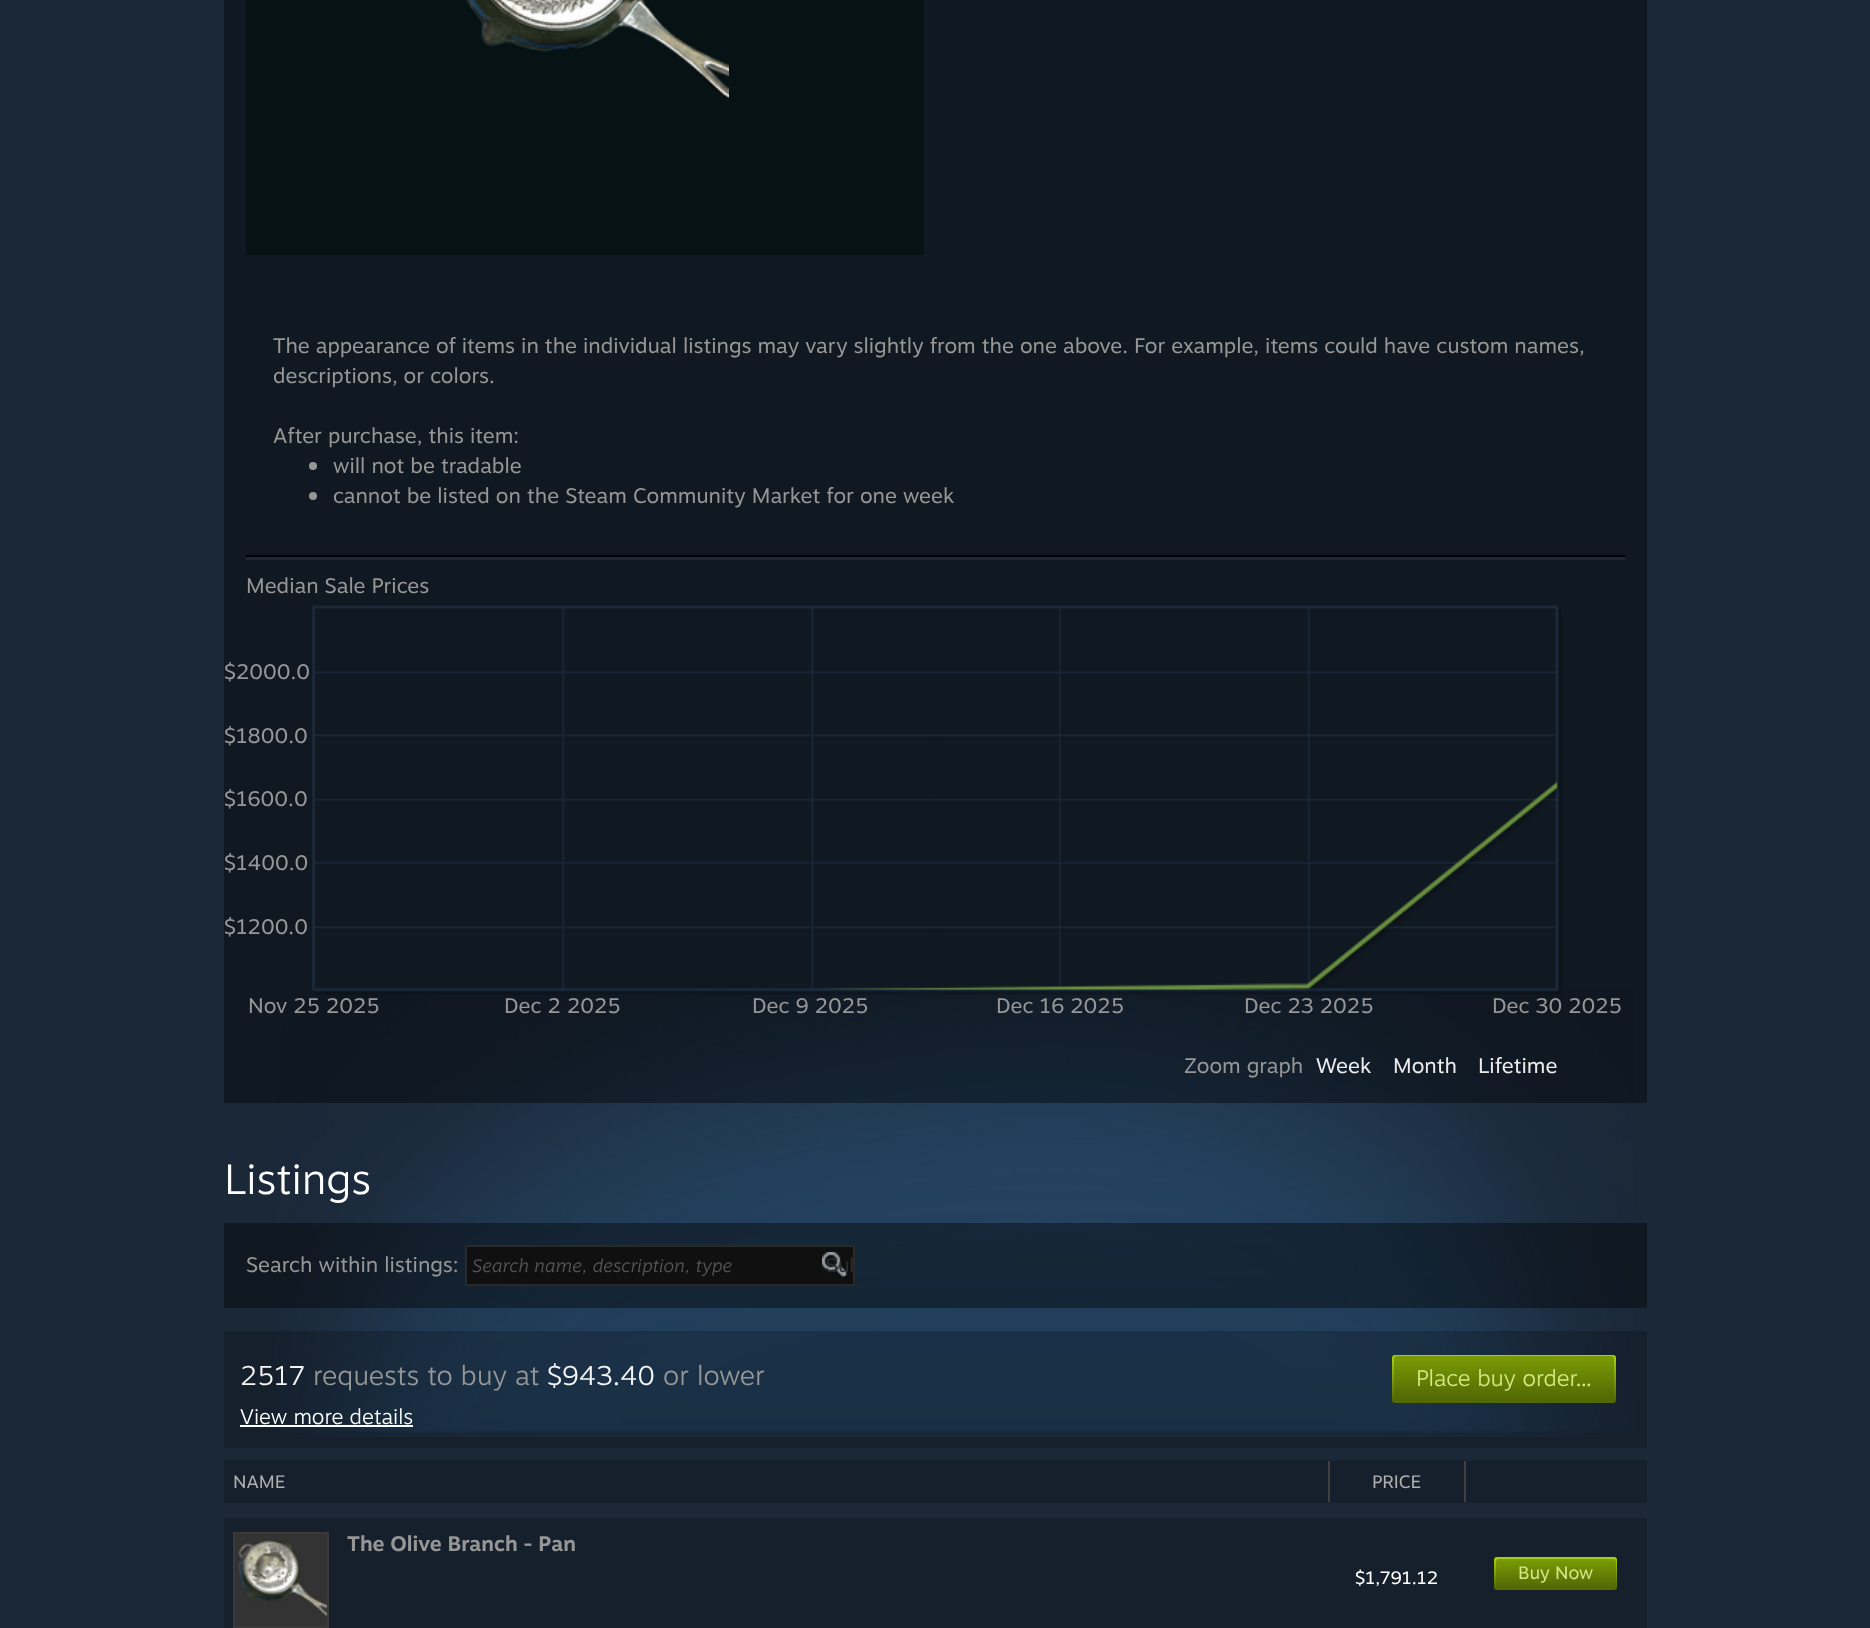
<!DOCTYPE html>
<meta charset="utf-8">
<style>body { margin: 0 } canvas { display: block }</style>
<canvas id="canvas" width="1870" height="1628"></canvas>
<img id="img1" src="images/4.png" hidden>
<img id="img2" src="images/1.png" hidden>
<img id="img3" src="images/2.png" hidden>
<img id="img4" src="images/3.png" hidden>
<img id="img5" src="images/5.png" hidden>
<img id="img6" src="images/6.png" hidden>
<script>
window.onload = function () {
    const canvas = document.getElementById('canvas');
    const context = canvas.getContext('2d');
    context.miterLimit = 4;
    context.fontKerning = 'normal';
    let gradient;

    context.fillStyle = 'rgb(27, 40, 56)';
    context.fillRect(0, 0, 1870, 1628);
    context.drawImage(document.getElementById('img1'), 275, 990, 1359, 447);
    context.fillStyle = 'rgba(0, 0, 0, 0.4)';
    context.fillRect(224, 0, 1423, 1103);
    context.fillStyle = 'rgb(7, 18, 21)';
    context.beginPath();
    context.roundRect(246, -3, 678, 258, 3);
    context.fill();
    context.drawImage(document.getElementById('img2'), 466, 0, 263, 99);
    context.fillStyle = 'rgb(150, 150, 150)';
    context.beginPath();
    context.arc(313, 466, 4, 0, 2 * Math.PI);
    context.fill();
    context.beginPath();
    context.arc(313, 496, 4, 0, 2 * Math.PI);
    context.fill();
    context.fillStyle = 'rgb(27, 41, 57)';
    context.fillRect(246, 557, 1379, 3);
    context.fillStyle = 'rgb(0, 0, 0)';
    context.fillRect(246, 555, 1379, 2);
    context.drawImage(document.getElementById('img3'), 311, 605, 1251, 390);
    context.drawImage(document.getElementById('img4'), 819, 782, 738, 208);
    context.fillStyle = 'rgba(0, 0, 0, 0.4)';
    context.fillRect(224, 1223, 1423, 85);
    context.fillStyle = 'rgb(16, 16, 16)';
    context.beginPath();
    context.rect(466, 1246, 388, 39);
    context.fill();
    context.strokeStyle = 'rgb(41, 41, 41)';
    context.lineWidth = 2;
    context.stroke();
    context.drawImage(document.getElementById('img5'), 822, 1252, 26, 26);
    context.fillStyle = 'rgba(0, 0, 0, 0.2)';
    context.fillRect(224, 1331, 1423, 117);
    gradient = context.createLinearGradient(1504, 1355, 1504, 1403);
    gradient.addColorStop(0.05, 'rgb(164, 208, 7)');
    gradient.addColorStop(0.95, 'rgb(83, 105, 4)');
    context.fillStyle = gradient;
    context.beginPath();
    context.roundRect(1392, 1355, 224, 48, 3);
    context.fill();
    gradient = context.createLinearGradient(1504, 1356, 1504, 1401);
    gradient.addColorStop(0.05, 'rgb(121, 153, 5)');
    gradient.addColorStop(0.95, 'rgb(83, 105, 4)');
    context.fillStyle = gradient;
    context.beginPath();
    context.roundRect(1394, 1356, 220, 45, 3);
    context.fill();
    context.fillStyle = 'rgb(255, 255, 255)';
    context.fillRect(240, 1425, 173, 2);
    context.fillStyle = 'rgb(22, 32, 45)';
    context.fillRect(224, 1460, 1423, 43);
    context.fillStyle = 'rgb(64, 64, 64)';
    context.fillRect(1328, 1461, 2, 41);
    context.fillRect(1464, 1461, 2, 41);
    context.fillStyle = 'rgb(22, 32, 45)';
    context.fillRect(224, 1518, 1423, 110);
    context.fillStyle = 'rgb(51, 51, 51)';
    context.beginPath();
    context.rect(234, 1533, 94, 94);
    context.fill();
    context.strokeStyle = 'rgb(58, 58, 58)';
    context.stroke();
    context.drawImage(document.getElementById('img6'), 237, 1540, 90, 77);
    gradient = context.createLinearGradient(1556, 1557, 1556, 1590);
    gradient.addColorStop(0.05, 'rgb(164, 208, 7)');
    gradient.addColorStop(0.95, 'rgb(83, 105, 4)');
    context.fillStyle = gradient;
    context.beginPath();
    context.roundRect(1494, 1557, 123, 33, 3);
    context.fill();
    gradient = context.createLinearGradient(1556, 1559, 1556, 1589);
    gradient.addColorStop(0.05, 'rgb(121, 153, 5)');
    gradient.addColorStop(0.95, 'rgb(83, 105, 4)');
    context.fillStyle = gradient;
    context.beginPath();
    context.roundRect(1496, 1559, 120, 30, 3);
    context.fill();
    context.font = '21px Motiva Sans';
    context.fillStyle = 'rgb(150, 150, 150)';
    context.fillText('The appearance of items in the individual listings may vary slightly from the one above. For example, items could have custom names,', 273, 353);
    context.fillText('descriptions, or colors.', 273, 383);
    context.fillText('After purchase, this item:', 273, 443);
    context.fillText('will not be tradable', 333, 473);
    context.fillText('cannot be listed on the Steam Community Market for one week', 333, 503);
    context.fillText('Median Sale Prices', 246, 593);
    context.fillText('$2000.0', 224, 679);
    context.fillText('$1800.0', 224, 743);
    context.fillText('$1600.0', 224, 806);
    context.fillText('$1400.0', 224, 870);
    context.fillText('$1200.0', 224, 934);
    context.fillText('Nov 25 2025', 248, 1013);
    context.fillText('Dec 2 2025', 504, 1013);
    context.fillText('Dec 9 2025', 752, 1013);
    context.fillText('Dec 16 2025', 996, 1013);
    context.fillText('Dec 23 2025', 1244, 1013);
    context.fillText('Dec 30 2025', 1492, 1013);
    context.fillText('Zoom graph', 1184, 1073);
    context.fillStyle = 'rgb(235, 235, 235)';
    context.fillText('Week', 1316, 1073);
    context.fillText('Month', 1393, 1073);
    context.fillText('Lifetime', 1478, 1073);
    context.font = '300 42px Motiva Sans';
    context.fillStyle = 'rgb(255, 255, 255)';
    context.fillText('Listings', 224, 1194);
    context.font = '21px Motiva Sans';
    context.fillStyle = 'rgb(150, 150, 150)';
    context.fillText('Search within listings:', 246, 1272);
    context.font = 'italic 300 18px Motiva Sans';
    context.fillStyle = 'rgb(85, 85, 85)';
    context.fillText('Search name, description, type', 472, 1272);
    context.save();
    context.beginPath();
    context.rect(816, 1247, 39, 37);
    context.clip();
    context.font = '20px Liberation Sans';
    context.fillStyle = 'rgb(43, 44, 45)';
    context.fillText('Sub', 825, 1272);
    context.restore();
    context.font = '300 27px Motiva Sans';
    context.fillStyle = 'rgb(245, 245, 245)';
    context.fillText('2517', 240, 1385);
    context.fillStyle = 'rgb(150, 150, 150)';
    context.fillText('requests to buy at', 313, 1385);
    context.fillStyle = 'rgb(245, 245, 245)';
    context.fillText('$943.40', 547, 1385);
    context.fillStyle = 'rgb(150, 150, 150)';
    context.fillText('or lower', 663, 1385);
    context.font = '300 22.5px Motiva Sans';
    context.fillStyle = 'rgb(210, 232, 133)';
    context.fillText('Place buy order...', 1416, 1386);
    context.font = '300 21px Motiva Sans';
    context.fillStyle = 'rgb(255, 255, 255)';
    context.fillText('View more details', 240, 1424);
    context.font = '18px Motiva Sans';
    context.fillStyle = 'rgb(175, 175, 175)';
    context.fillText('NAME', 233, 1488);
    context.fillText('PRICE', 1372, 1488);
    context.font = 'bold 21px Motiva Sans';
    context.fillStyle = 'rgb(150, 150, 150)';
    context.fillText('The Olive Branch - Pan', 347, 1551);
    context.font = '18px Motiva Sans';
    context.fillStyle = 'rgb(255, 255, 255)';
    context.fillText('$1,791.12', 1355, 1584);
    context.fillStyle = 'rgb(210, 232, 133)';
    context.fillText('Buy Now', 1518, 1579);
};
</script>
